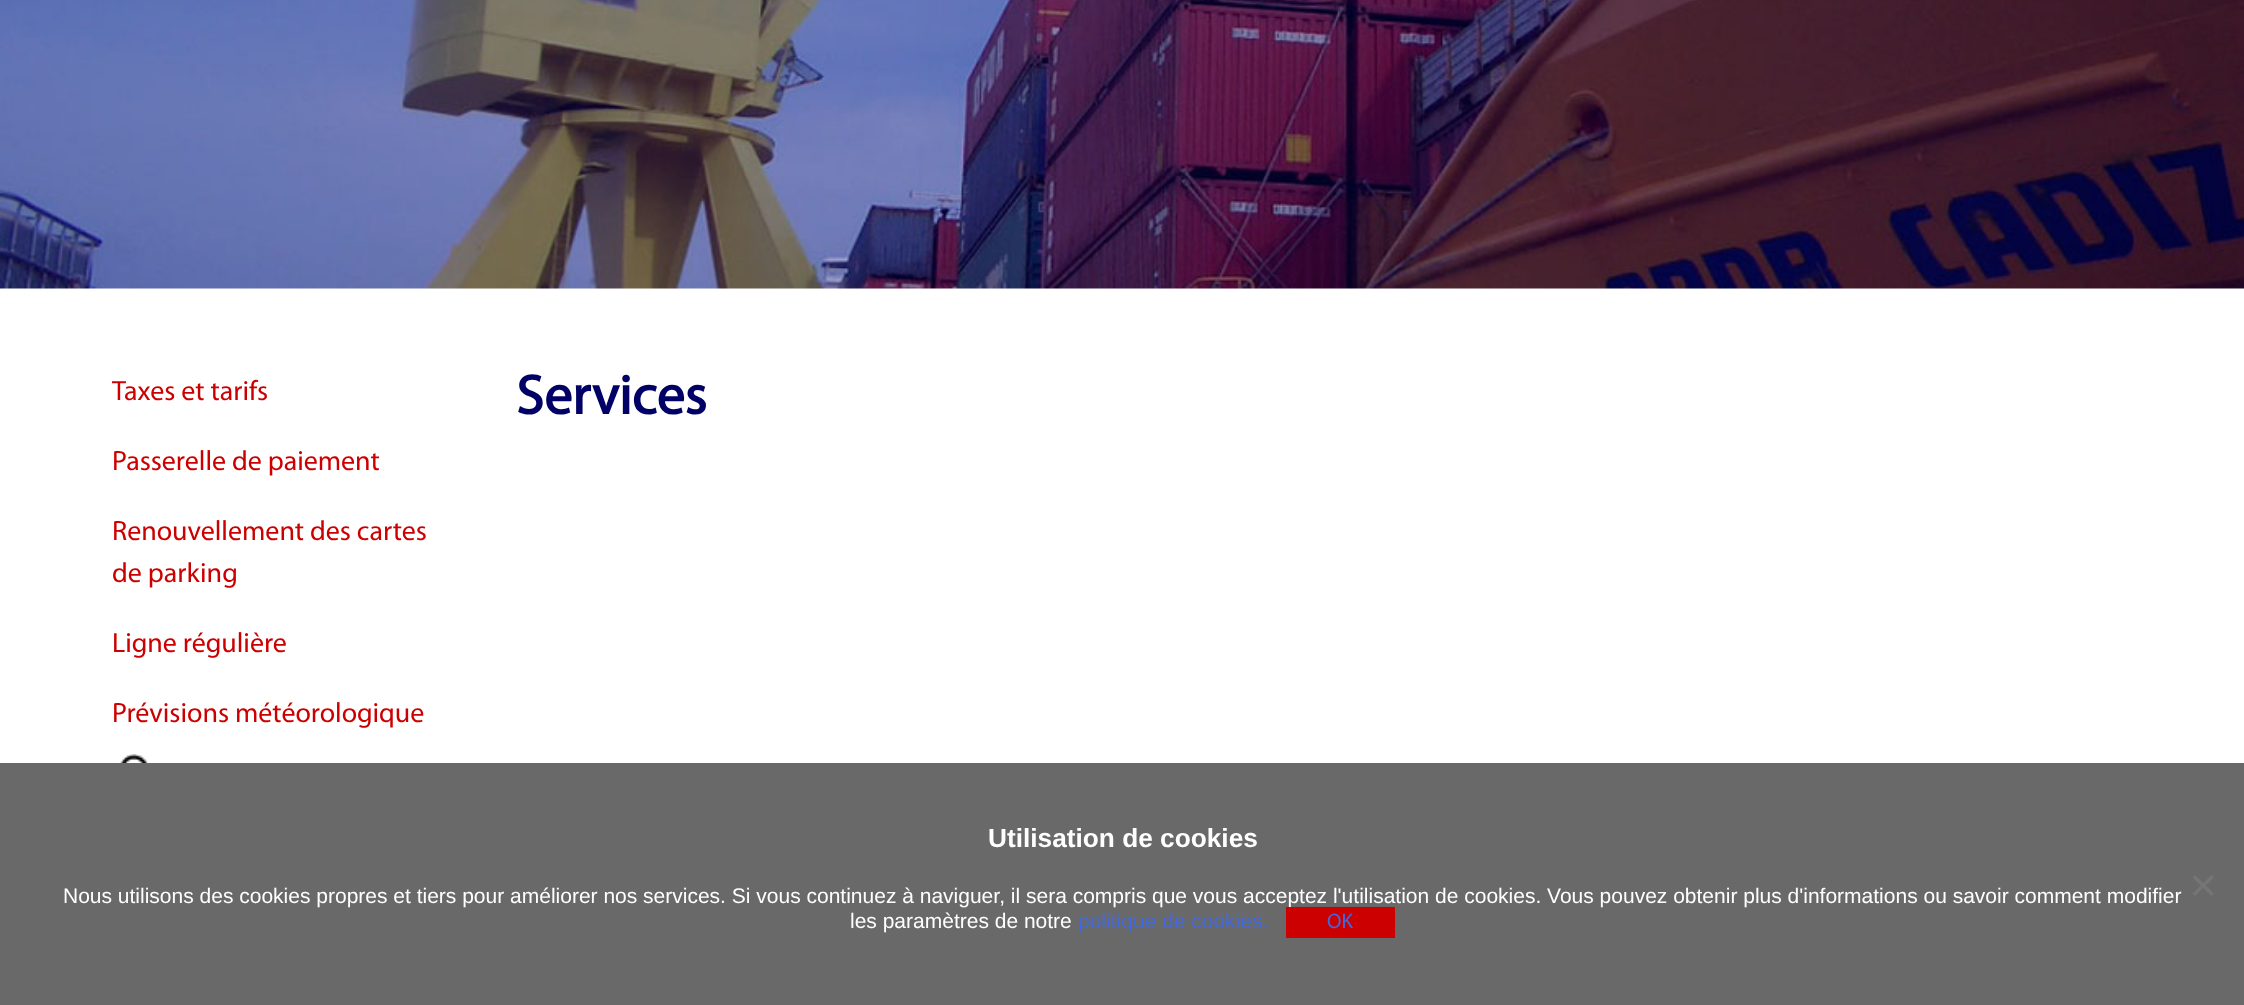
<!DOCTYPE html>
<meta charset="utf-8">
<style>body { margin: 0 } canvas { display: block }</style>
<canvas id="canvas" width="2244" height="1005"></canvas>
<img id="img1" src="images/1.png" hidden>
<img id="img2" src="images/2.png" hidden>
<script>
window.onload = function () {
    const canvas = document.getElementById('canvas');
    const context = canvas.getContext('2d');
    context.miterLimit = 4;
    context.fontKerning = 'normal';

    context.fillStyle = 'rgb(255, 255, 255)';
    context.fillRect(0, 0, 2244, 1005);
    context.drawImage(document.getElementById('img1'), 0, 0, 2244, 289);
    context.drawImage(document.getElementById('img2'), 120, 754, 28, 9);
    context.fillStyle = 'rgb(105, 105, 105)';
    context.fillRect(0, 763, 2244, 242);
    context.fillStyle = 'rgb(117, 117, 117)';
    context.beginPath();
    context.moveTo(2211.5, 875);
    context.lineTo(2214, 877.5);
    context.lineTo(2195, 896);
    context.lineTo(2192.5, 893.5);
    context.closePath();
    context.fill();
    context.beginPath();
    context.moveTo(2192.5, 877.5);
    context.lineTo(2195, 875);
    context.lineTo(2214, 893.5);
    context.lineTo(2211.5, 896);
    context.closePath();
    context.fill();
    context.font = '28px Myriad';
    context.fillStyle = 'rgb(204, 0, 0)';
    context.fillText('Taxes et tarifs', 112, 400);
    context.fillText('Passerelle de paiement', 112, 470);
    context.fillText('Renouvellement des cartes', 112, 540);
    context.fillText('de parking', 112, 582);
    context.fillText('Ligne régulière', 112, 652);
    context.fillText('Prévisions météorologique', 112, 722);
    context.font = 'bold 56px Myriad';
    context.fillStyle = 'rgb(0, 0, 102)';
    context.fillText('Services', 516, 414);
    context.font = 'bold 26.25px Liberation Sans';
    context.fillStyle = 'rgb(255, 255, 255)';
    context.fillText('Utilisation de cookies', 988, 847);
    context.font = '21px Liberation Sans';
    context.fillText('Nous utilisons des cookies propres et tiers pour améliorer nos services. Si vous continuez à naviguer, il sera compris que vous acceptez l\'utilisation de cookies. Vous pouvez obtenir plus d\'informations ou savoir comment modifier', 63, 903);
    context.fillText('les paramètres de notre', 850, 928);
    context.fillStyle = 'rgb(65, 105, 225)';
    context.fillText('politique de cookies.', 1078, 928);
    context.fillStyle = 'rgb(204, 0, 0)';
    context.fillRect(1286, 907, 109, 31);
    context.font = '21px Myriad';
    context.fillStyle = 'rgb(65, 105, 225)';
    context.fillText('OK', 1327, 928);
};
</script>
